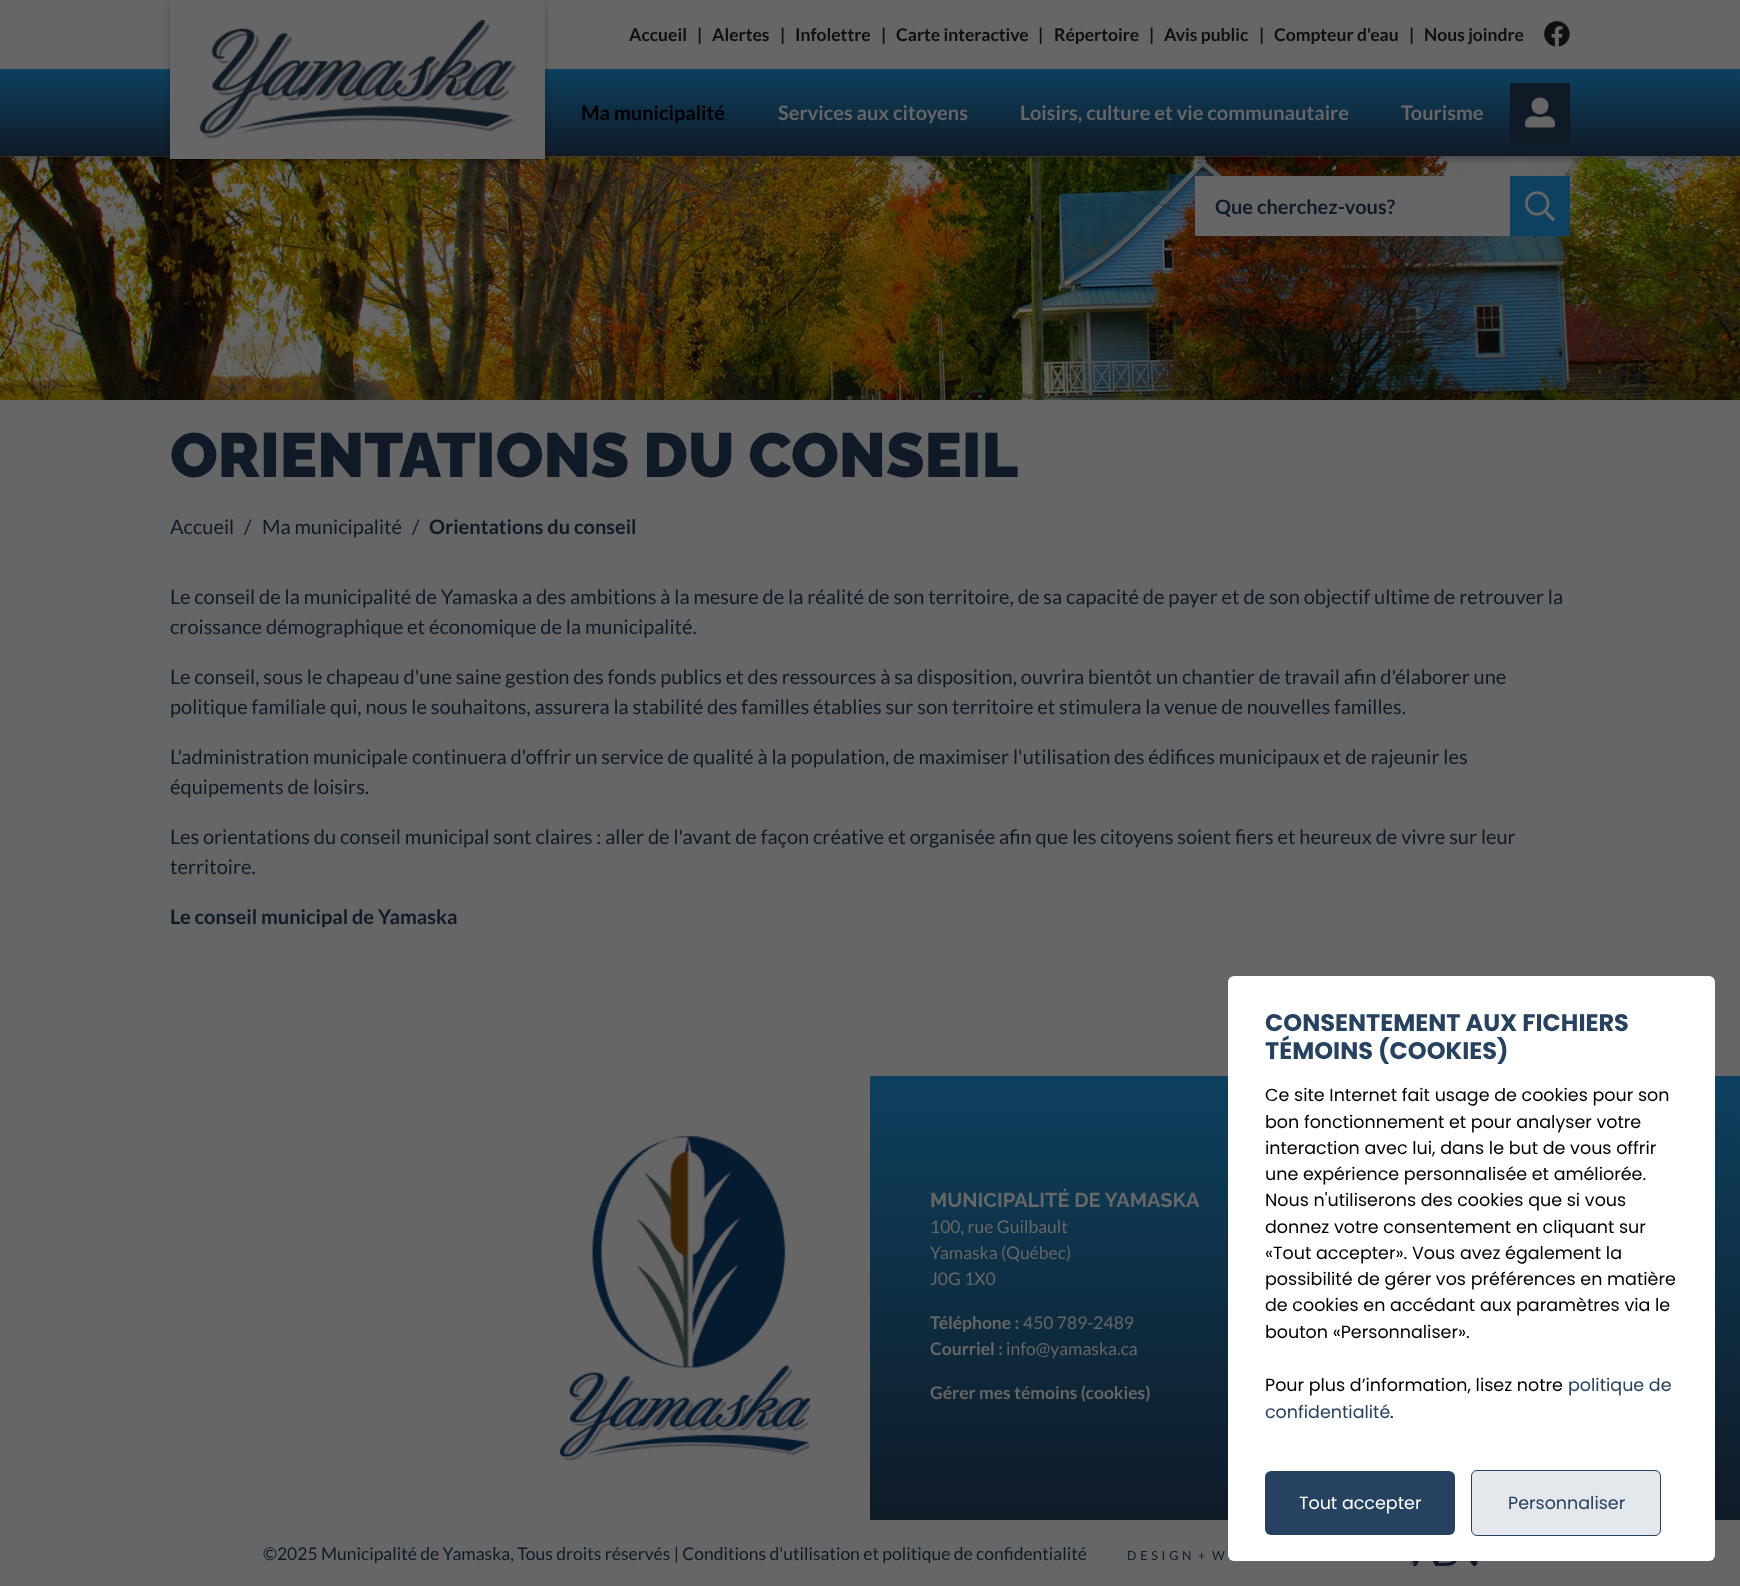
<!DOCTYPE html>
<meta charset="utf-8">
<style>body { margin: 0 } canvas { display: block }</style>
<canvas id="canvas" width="1740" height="1586"></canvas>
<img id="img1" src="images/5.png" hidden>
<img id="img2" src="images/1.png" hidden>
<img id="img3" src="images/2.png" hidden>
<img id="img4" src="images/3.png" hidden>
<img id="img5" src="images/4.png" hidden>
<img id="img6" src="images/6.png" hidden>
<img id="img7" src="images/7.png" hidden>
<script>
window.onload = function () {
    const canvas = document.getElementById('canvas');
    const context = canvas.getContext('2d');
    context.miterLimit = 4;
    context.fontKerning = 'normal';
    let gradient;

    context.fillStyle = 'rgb(102, 102, 102)';
    context.fillRect(0, 0, 1740, 1586);
    context.drawImage(document.getElementById('img1'), 0, 156, 1740, 244);
    context.save();
    context.beginPath();
    context.rect(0, 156, 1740, 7);
    context.clip();
    context.fillStyle = 'rgba(0, 0, 0, 0.25)';
    context.filter = 'blur(3px)';
    context.beginPath();
    context.rect(0, 3, 1740, 156);
    context.fill();
    context.filter = 'none';
    context.restore();
    gradient = context.createLinearGradient(1068, 156, 1068, 69);
    gradient.addColorStop(0, 'rgb(15, 26, 38)');
    gradient.addColorStop(1, 'rgb(13, 65, 95)');
    context.fillStyle = gradient;
    context.fillRect(0, 69, 1740, 87);
    context.fillStyle = 'rgba(0, 0, 0, 0.25)';
    context.filter = 'blur(3px)';
    context.beginPath();
    context.rect(170, 3, 375, 158);
    context.fill();
    context.filter = 'none';
    context.fillStyle = 'rgb(102, 102, 102)';
    context.fillRect(170, 0, 375, 159);
    context.drawImage(document.getElementById('img2'), 199, 20, 318, 119);
    context.drawImage(document.getElementById('img3'), 1544, 21, 26, 26);
    context.fillStyle = 'rgb(15, 26, 38)';
    context.fillRect(1510, 83, 60, 60);
    context.drawImage(document.getElementById('img4'), 1525, 97, 30, 31);
    context.fillStyle = 'rgb(102, 102, 102)';
    context.fillRect(1195, 176, 315, 60);
    context.fillStyle = 'rgb(13, 65, 95)';
    context.fillRect(1510, 176, 60, 60);
    context.drawImage(document.getElementById('img5'), 1525, 191, 30, 31);
    gradient = context.createLinearGradient(870, 1520, 870, 1076);
    gradient.addColorStop(0, 'rgb(15, 26, 38)');
    gradient.addColorStop(1, 'rgb(13, 65, 95)');
    context.fillStyle = gradient;
    context.fillRect(870, 1076, 870, 444);
    context.drawImage(document.getElementById('img6'), 560, 1136, 250, 324);
    context.drawImage(document.getElementById('img7'), 1409, 1561, 69, 5);
    context.fillStyle = 'rgb(255, 255, 255)';
    context.beginPath();
    context.roundRect(1228, 976, 487, 585, 6);
    context.fill();
    context.fillStyle = 'rgb(38, 66, 96)';
    context.beginPath();
    context.roundRect(1265, 1471, 190, 64, 6);
    context.fill();
    context.fillStyle = 'rgb(228, 231, 235)';
    context.beginPath();
    context.roundRect(1471.5, 1470.5, 189, 65, 5.5);
    context.fill();
    context.strokeStyle = 'rgb(38, 66, 96)';
    context.stroke();
    context.font = 'bold 17.5px Lato';
    context.fillStyle = 'rgb(13, 15, 16)';
    context.fillText('Accueil', 629, 41);
    context.fillText('|', 697, 41);
    context.fillText('Alertes', 712, 41);
    context.fillText('|', 780, 41);
    context.fillText('Infolettre', 795, 41);
    context.fillText('|', 881, 41);
    context.fillText('Carte interactive', 896, 41);
    context.fillText('|', 1038, 41);
    context.fillText('Répertoire', 1054, 41);
    context.fillText('|', 1149, 41);
    context.fillText('Avis public', 1164, 41);
    context.fillText('|', 1259, 41);
    context.fillText('Compteur d\'eau', 1274, 41);
    context.fillText('|', 1409, 41);
    context.fillText('Nous joindre', 1424, 41);
    context.font = 'bold 20px Lato';
    context.fillStyle = 'rgb(0, 0, 0)';
    context.fillText('Ma municipalité', 581, 120);
    context.fillStyle = 'rgb(102, 102, 102)';
    context.fillText('Services aux citoyens', 778, 120);
    context.fillText('Loisirs, culture et vie communautaire', 1020, 120);
    context.fillText('Tourisme', 1401, 120);
    context.fillStyle = 'rgb(15, 26, 38)';
    context.fillText('Que cherchez-vous?', 1215, 214);
    context.font = '900 62.5px Raleway';
    context.fillText('ORIENTATIONS DU CONSEIL', 170, 477);
    context.font = '20px Lato';
    context.fillText('Accueil', 170, 534);
    context.fillText('/', 244, 534);
    context.fillText('Ma municipalité', 262, 534);
    context.fillText('/', 412, 534);
    context.font = 'bold 20px Lato';
    context.fillText('Orientations du conseil', 429, 534);
    context.font = '20px Lato';
    context.fillText('Le conseil de la municipalité de Yamaska a des ambitions à la mesure de la réalité de son territoire, de sa capacité de payer et de son objectif ultime de retrouver la', 170, 604);
    context.fillText('croissance démographique et économique de la municipalité.', 170, 634);
    context.fillText('Le conseil, sous le chapeau d\'une saine gestion des fonds publics et des ressources à sa disposition, ouvrira bientôt un chantier de travail afin d\'élaborer une', 170, 684);
    context.fillText('politique familiale qui, nous le souhaitons, assurera la stabilité des familles établies sur son territoire et stimulera la venue de nouvelles familles.', 170, 714);
    context.fillText('L\'administration municipale continuera d\'offrir un service de qualité à la population, de maximiser l\'utilisation des édifices municipaux et de rajeunir les', 170, 764);
    context.fillText('équipements de loisirs.', 170, 794);
    context.fillText('Les orientations du conseil municipal sont claires : aller de l\'avant de façon créative et organisée afin que les citoyens soient fiers et heureux de vivre sur leur', 170, 844);
    context.fillText('territoire.', 170, 874);
    context.font = 'bold 20px Lato';
    context.fillText('Le conseil municipal de Yamaska', 170, 924);
    context.font = 'bold 20px Raleway';
    context.fillStyle = 'rgb(102, 102, 102)';
    context.fillText('MUNICIPALITÉ DE YAMASKA', 930, 1207);
    context.font = '17.5px Lato';
    context.fillText('100, rue Guilbault', 930, 1233);
    context.fillText('Yamaska (Québec)', 930, 1259);
    context.fillText('J0G 1X0', 930, 1285);
    context.font = 'bold 17.5px Lato';
    context.fillText('Téléphone :', 930, 1329);
    context.font = '17.5px Lato';
    context.fillText('450 789-2489', 1023, 1329);
    context.font = 'bold 17.5px Lato';
    context.fillText('Courriel :', 930, 1355);
    context.font = '17.5px Lato';
    context.fillText('info@yamaska.ca', 1006, 1355);
    context.font = 'bold 17.5px Lato';
    context.fillText('Gérer mes témoins (cookies)', 930, 1399);
    context.font = '17.5px Lato';
    context.fillStyle = 'rgb(15, 26, 38)';
    context.fillText('©2025 Municipalité de Yamaska, Tous droits réservés | Conditions d\'utilisation et politique de confidentialité', 263, 1560);
    context.letterSpacing = '3.75px';
    context.font = '12.5px Lato';
    context.fillText('DESIGN', 1127, 1560);
    context.fillText('+', 1198, 1560);
    context.fillText('W', 1212, 1560);
    context.letterSpacing = '0px';
    context.font = 'bold 24px Poppins';
    context.fillStyle = 'rgb(38, 66, 96)';
    context.fillText('CONSENTEMENT AUX FICHIERS', 1265, 1031);
    context.fillText('TÉMOINS (COOKIES)', 1265, 1059);
    context.font = '17.5px Poppins';
    context.fillStyle = 'rgb(0, 0, 0)';
    context.fillText('Ce site Internet fait usage de cookies pour son', 1265, 1101);
    context.fillText('bon fonctionnement et pour analyser votre', 1265, 1128);
    context.fillText('interaction avec lui, dans le but de vous offrir', 1265, 1154);
    context.fillText('une expérience personnalisée et améliorée.', 1265, 1180);
    context.fillText('Nous n\'utiliserons des cookies que si vous', 1265, 1206);
    context.fillText('donnez votre consentement en cliquant sur', 1265, 1233);
    context.fillText('«Tout accepter». Vous avez également la', 1265, 1259);
    context.fillText('possibilité de gérer vos préférences en matière', 1265, 1285);
    context.fillText('de cookies en accédant aux paramètres via le', 1265, 1311);
    context.fillText('bouton «Personnaliser».', 1265, 1338);
    context.fillText('Pour plus d’information, lisez notre', 1265, 1391);
    context.fillStyle = 'rgb(38, 66, 96)';
    context.fillText('politique de', 1568, 1391);
    context.fillText('confidentialité', 1265, 1418);
    context.fillStyle = 'rgb(0, 0, 0)';
    context.fillText('.', 1390, 1418);
    context.fillStyle = 'rgb(255, 255, 255)';
    context.fillText('Tout accepter', 1299, 1509);
    context.fillStyle = 'rgb(38, 66, 96)';
    context.fillText('Personnaliser', 1508, 1509);
};
</script>
